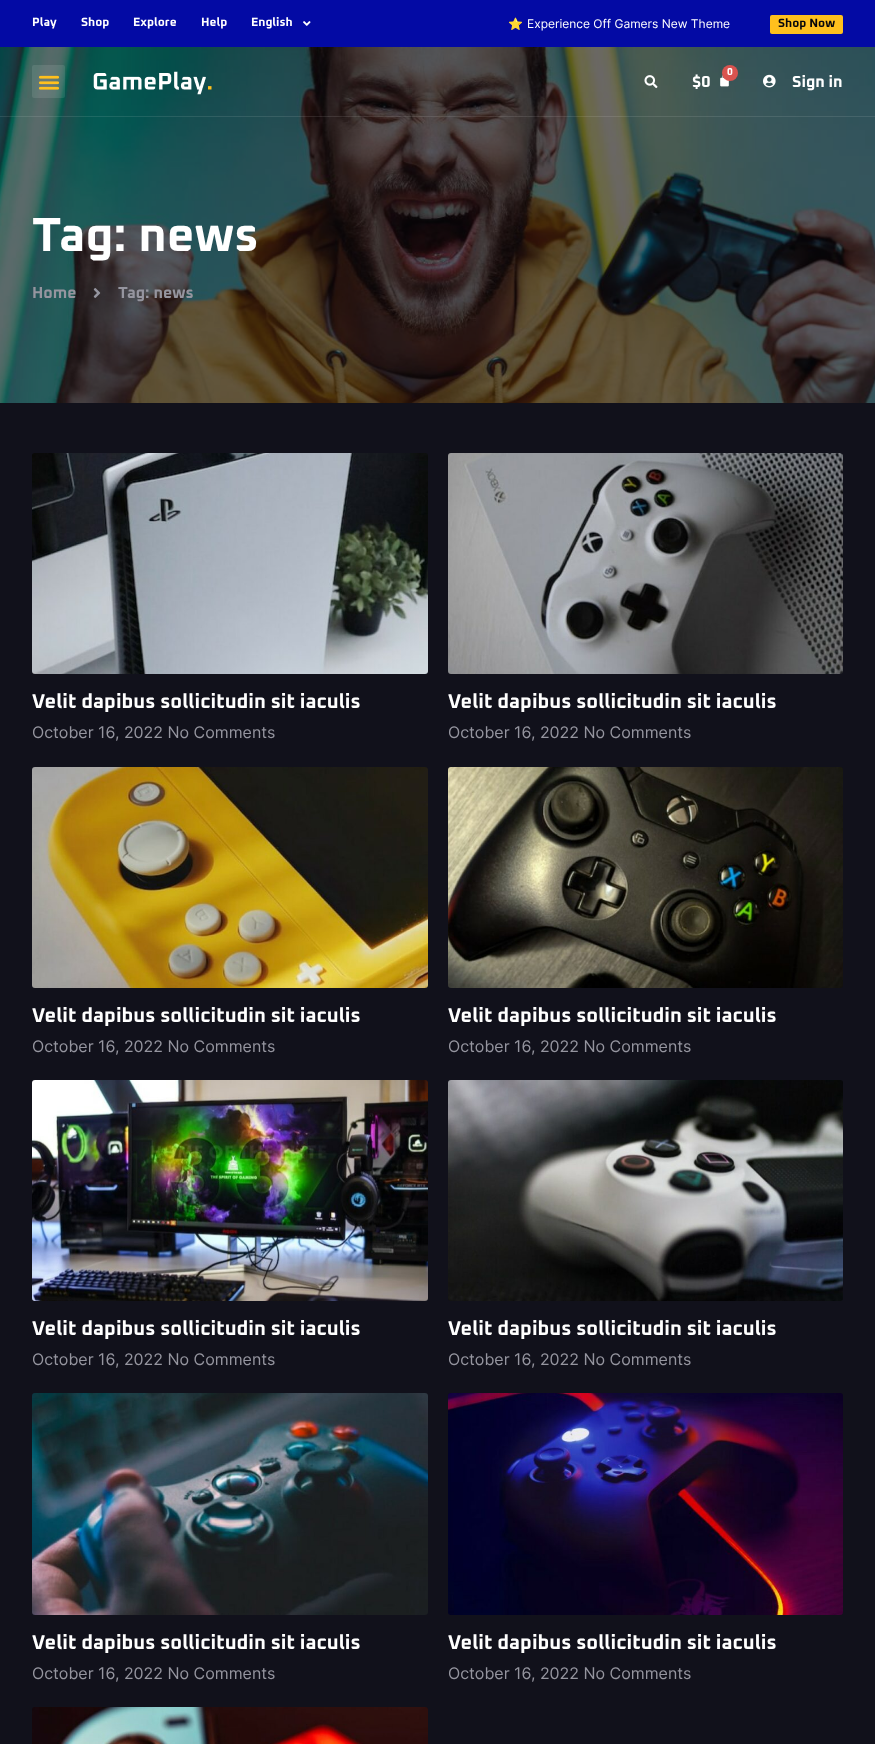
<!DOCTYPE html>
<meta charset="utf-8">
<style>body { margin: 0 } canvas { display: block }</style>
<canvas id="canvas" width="875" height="1744"></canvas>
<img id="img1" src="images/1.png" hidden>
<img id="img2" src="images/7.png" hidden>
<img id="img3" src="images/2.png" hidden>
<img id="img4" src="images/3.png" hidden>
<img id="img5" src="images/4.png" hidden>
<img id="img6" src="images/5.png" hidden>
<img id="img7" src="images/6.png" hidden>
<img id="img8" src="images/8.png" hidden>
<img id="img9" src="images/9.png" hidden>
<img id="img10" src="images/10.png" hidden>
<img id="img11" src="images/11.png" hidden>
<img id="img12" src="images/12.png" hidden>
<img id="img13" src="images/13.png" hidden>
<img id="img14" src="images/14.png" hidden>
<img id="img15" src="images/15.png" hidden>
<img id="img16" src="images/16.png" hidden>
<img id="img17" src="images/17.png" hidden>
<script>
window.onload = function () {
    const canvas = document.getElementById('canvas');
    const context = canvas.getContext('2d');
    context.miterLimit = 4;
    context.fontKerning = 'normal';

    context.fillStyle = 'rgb(17, 17, 27)';
    context.fillRect(0, 0, 875, 1744);
    context.fillStyle = 'rgb(3, 10, 164)';
    context.fillRect(0, 0, 875, 47);
    context.drawImage(document.getElementById('img1'), 303, 21, 8, 5);
    context.fillStyle = 'rgb(255, 192, 29)';
    context.beginPath();
    context.roundRect(770, 15, 73, 19, 2);
    context.fill();
    context.drawImage(document.getElementById('img2'), 0, 47, 875, 356);
    context.fillStyle = 'rgba(255, 255, 255, 0.1)';
    context.fillRect(0, 116, 875, 1);
    context.beginPath();
    context.roundRect(32, 65, 33, 33, 2);
    context.fill();
    context.drawImage(document.getElementById('img3'), 38, 75, 22, 15);
    context.drawImage(document.getElementById('img4'), 93, 71, 119, 24);
    context.drawImage(document.getElementById('img5'), 644, 75, 14, 14);
    context.drawImage(document.getElementById('img6'), 720, 75, 9, 12);
    context.fillStyle = 'rgb(217, 83, 79)';
    context.beginPath();
    context.arc(730, 73, 8, 0, 2 * Math.PI);
    context.fill();
    context.drawImage(document.getElementById('img7'), 763, 74, 13, 14);
    context.drawImage(document.getElementById('img8'), 93, 288, 8, 10);
    context.drawImage(document.getElementById('img9'), 32, 453, 396, 221);
    context.drawImage(document.getElementById('img10'), 448, 453, 395, 221);
    context.drawImage(document.getElementById('img11'), 32, 767, 396, 221);
    context.drawImage(document.getElementById('img12'), 448, 767, 395, 221);
    context.drawImage(document.getElementById('img13'), 32, 1080, 396, 221);
    context.drawImage(document.getElementById('img14'), 448, 1080, 395, 221);
    context.drawImage(document.getElementById('img15'), 32, 1393, 396, 222);
    context.drawImage(document.getElementById('img16'), 448, 1393, 395, 222);
    context.drawImage(document.getElementById('img17'), 32, 1707, 396, 37);
    context.font = 'bold 12px Oxanium';
    context.fillStyle = 'rgb(255, 255, 255)';
    context.fillText('Play', 32, 26);
    context.fillText('Shop', 81, 26);
    context.fillText('Explore', 133, 26);
    context.fillText('Help', 201, 26);
    context.fillText('English', 251, 26);
    context.font = '12px Noto Color Emoji';
    context.fillText('⭐️', 508, 28);
    context.font = '12px Inter';
    context.fillText('Experience Off Gamers New Theme', 527, 28);
    context.font = 'bold 12px Oxanium';
    context.fillStyle = 'rgb(7, 7, 12)';
    context.fillText('Shop Now', 778, 27);
    context.font = 'bold 10px Oxanium';
    context.fillStyle = 'rgb(255, 255, 255)';
    context.fillText('0', 727, 75);
    context.font = 'bold 16px Oxanium';
    context.fillText('$0', 692, 87);
    context.fillText('Sign in', 792, 87);
    context.font = 'bold 48px Oxanium';
    context.fillText('Tag: news', 32, 251);
    context.font = 'bold 16px Oxanium';
    context.fillStyle = 'rgb(149, 149, 159)';
    context.fillText('Home', 32, 298);
    context.fillText('Tag: news', 118, 298);
    context.font = 'bold 20px Oxanium';
    context.fillStyle = 'rgb(255, 255, 255)';
    context.fillText('Velit dapibus sollicitudin sit iaculis', 32, 708);
    context.font = '16px Inter';
    context.fillStyle = 'rgb(149, 149, 159)';
    context.fillText('October 16, 2022 No Comments', 32, 738);
    context.font = 'bold 20px Oxanium';
    context.fillStyle = 'rgb(255, 255, 255)';
    context.fillText('Velit dapibus sollicitudin sit iaculis', 448, 708);
    context.font = '16px Inter';
    context.fillStyle = 'rgb(149, 149, 159)';
    context.fillText('October 16, 2022 No Comments', 448, 738);
    context.font = 'bold 20px Oxanium';
    context.fillStyle = 'rgb(255, 255, 255)';
    context.fillText('Velit dapibus sollicitudin sit iaculis', 32, 1022);
    context.font = '16px Inter';
    context.fillStyle = 'rgb(149, 149, 159)';
    context.fillText('October 16, 2022 No Comments', 32, 1052);
    context.font = 'bold 20px Oxanium';
    context.fillStyle = 'rgb(255, 255, 255)';
    context.fillText('Velit dapibus sollicitudin sit iaculis', 448, 1022);
    context.font = '16px Inter';
    context.fillStyle = 'rgb(149, 149, 159)';
    context.fillText('October 16, 2022 No Comments', 448, 1052);
    context.font = 'bold 20px Oxanium';
    context.fillStyle = 'rgb(255, 255, 255)';
    context.fillText('Velit dapibus sollicitudin sit iaculis', 32, 1335);
    context.font = '16px Inter';
    context.fillStyle = 'rgb(149, 149, 159)';
    context.fillText('October 16, 2022 No Comments', 32, 1365);
    context.font = 'bold 20px Oxanium';
    context.fillStyle = 'rgb(255, 255, 255)';
    context.fillText('Velit dapibus sollicitudin sit iaculis', 448, 1335);
    context.font = '16px Inter';
    context.fillStyle = 'rgb(149, 149, 159)';
    context.fillText('October 16, 2022 No Comments', 448, 1365);
    context.font = 'bold 20px Oxanium';
    context.fillStyle = 'rgb(255, 255, 255)';
    context.fillText('Velit dapibus sollicitudin sit iaculis', 32, 1649);
    context.font = '16px Inter';
    context.fillStyle = 'rgb(149, 149, 159)';
    context.fillText('October 16, 2022 No Comments', 32, 1679);
    context.font = 'bold 20px Oxanium';
    context.fillStyle = 'rgb(255, 255, 255)';
    context.fillText('Velit dapibus sollicitudin sit iaculis', 448, 1649);
    context.font = '16px Inter';
    context.fillStyle = 'rgb(149, 149, 159)';
    context.fillText('October 16, 2022 No Comments', 448, 1679);
};
</script>
